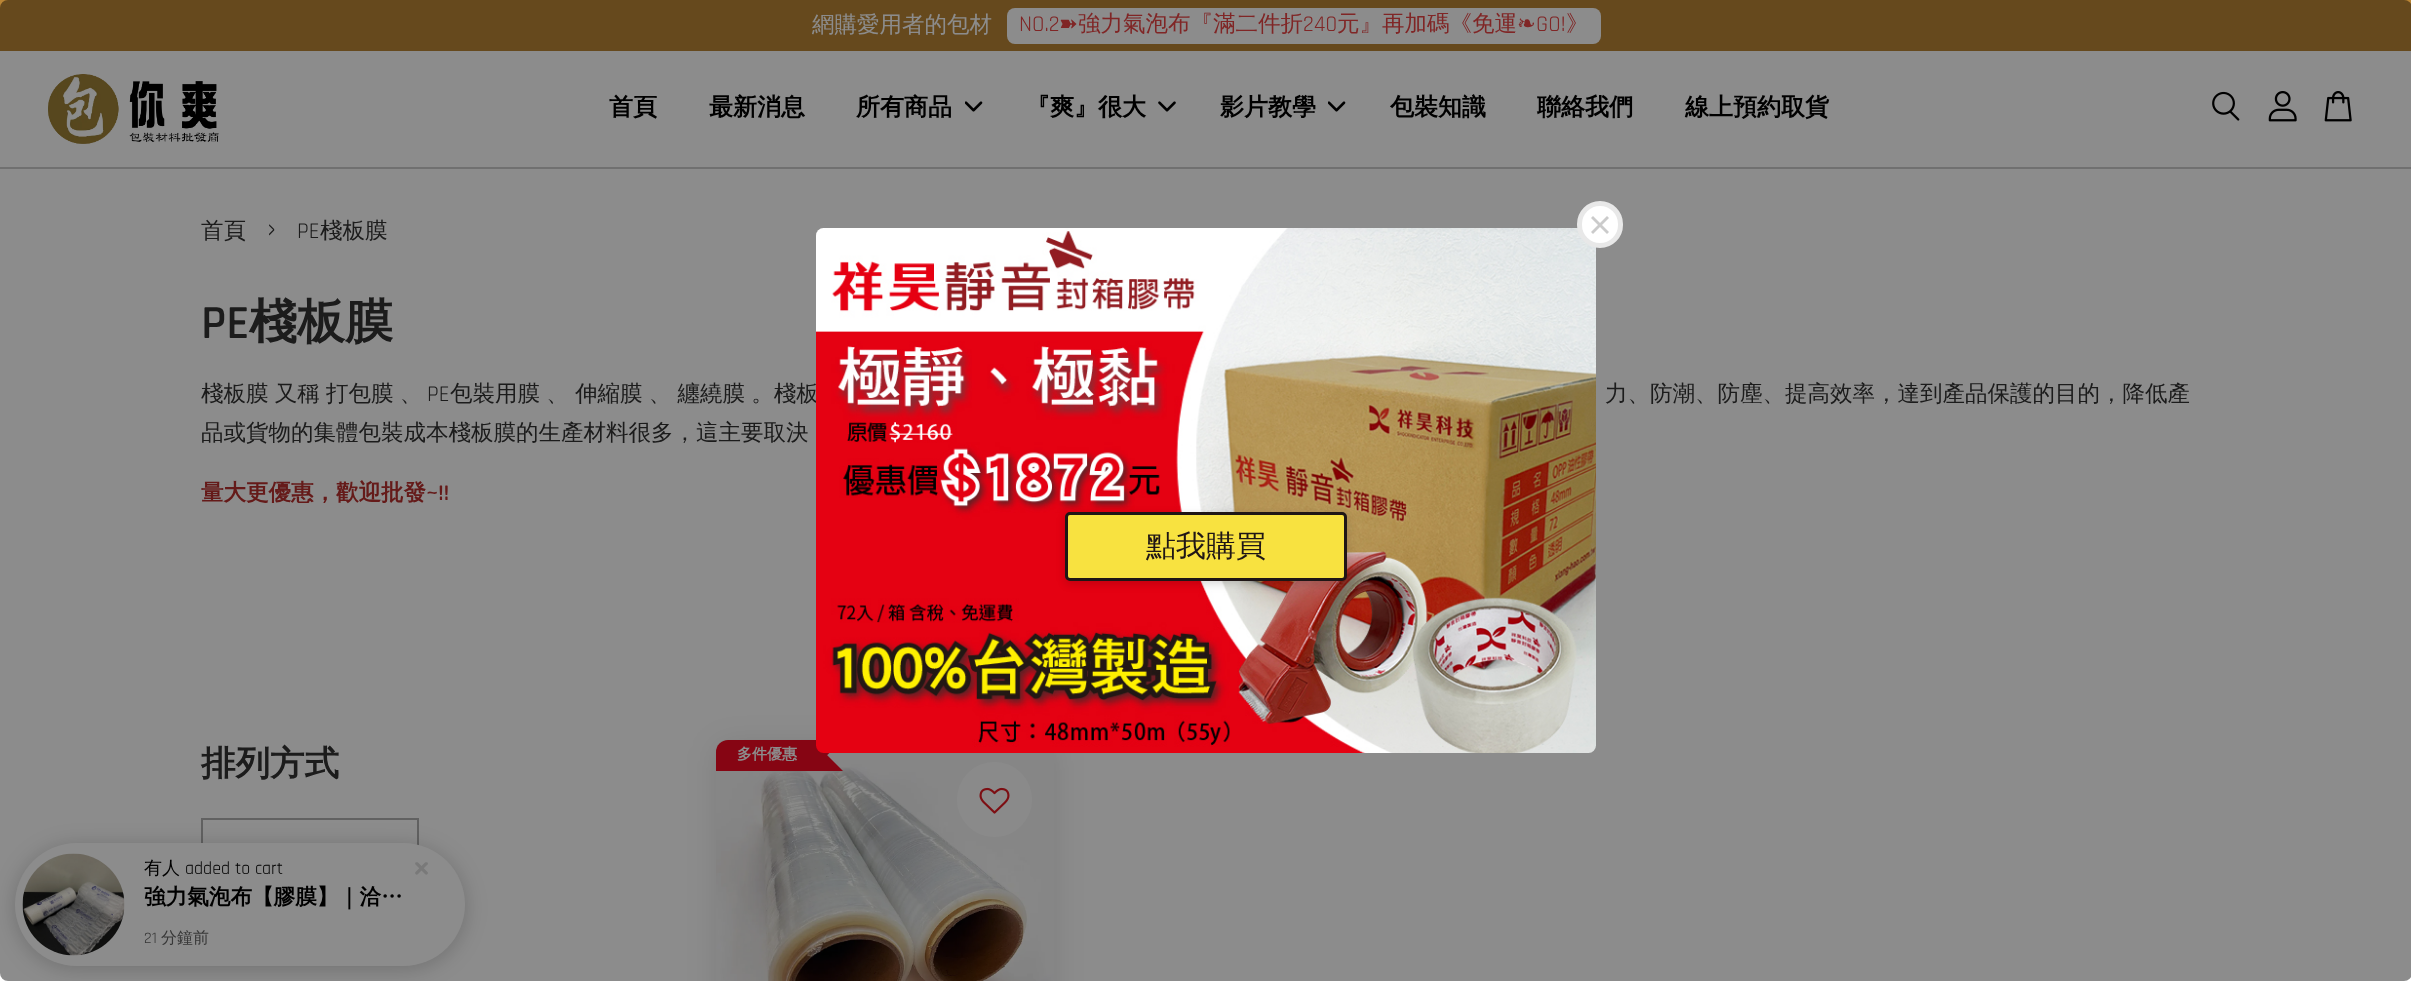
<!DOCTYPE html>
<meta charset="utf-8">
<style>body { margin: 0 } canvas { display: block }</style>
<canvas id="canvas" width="2411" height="981"></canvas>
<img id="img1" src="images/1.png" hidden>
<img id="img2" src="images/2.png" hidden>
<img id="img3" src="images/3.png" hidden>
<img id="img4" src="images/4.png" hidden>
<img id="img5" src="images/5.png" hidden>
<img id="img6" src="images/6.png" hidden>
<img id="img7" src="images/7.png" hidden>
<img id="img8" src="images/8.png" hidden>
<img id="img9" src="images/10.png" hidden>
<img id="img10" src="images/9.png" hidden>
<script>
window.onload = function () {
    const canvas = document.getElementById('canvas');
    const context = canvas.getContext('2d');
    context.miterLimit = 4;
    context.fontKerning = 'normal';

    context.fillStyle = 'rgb(255, 255, 255)';
    context.fillRect(0, 0, 2411, 981);
    context.fillStyle = 'rgb(186, 133, 53)';
    context.fillRect(0, 0, 2411, 51);
    context.fillStyle = 'rgb(255, 255, 255)';
    context.beginPath();
    context.roundRect(1007, 8, 594, 36, 8);
    context.fill();
    context.fillStyle = 'rgb(204, 204, 204)';
    context.fillRect(0, 167, 2411, 2);
    context.drawImage(document.getElementById('img1'), 48, 74, 171, 70);
    context.drawImage(document.getElementById('img2'), 965, 101, 18, 11);
    context.drawImage(document.getElementById('img3'), 1158, 101, 18, 11);
    context.drawImage(document.getElementById('img2'), 1328, 101, 18, 11);
    context.drawImage(document.getElementById('img4'), 2212, 91, 28, 30);
    context.drawImage(document.getElementById('img5'), 2268, 91, 29, 31);
    context.drawImage(document.getElementById('img6'), 2324, 91, 28, 31);
    context.strokeStyle = 'rgb(177, 177, 177)';
    context.lineWidth = 2;
    context.strokeRect(202, 819, 216, 62);
    context.fillStyle = 'rgba(0, 0, 0, 0.1)';
    context.filter = 'blur(15px)';
    context.beginPath();
    context.roundRect(716, 744, 339, 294, 12);
    context.fill();
    context.filter = 'none';
    context.drawImage(document.getElementById('img7'), 716, 739, 338, 242);
    context.fillStyle = 'rgb(245, 10, 36)';
    context.beginPath();
    context.roundRect(716, 740, 105, 31, [12, 0, 0, 0]);
    context.fill();
    context.beginPath();
    context.moveTo(798, 740);
    context.lineTo(843, 740);
    context.lineTo(820, 762);
    context.closePath();
    context.fill();
    context.beginPath();
    context.moveTo(843, 771);
    context.lineTo(798, 771);
    context.lineTo(820, 748);
    context.closePath();
    context.fill();
    context.fillStyle = 'rgba(255, 255, 255, 0.7)';
    context.beginPath();
    context.arc(994.5, 799.5, 37.5, 0, 2 * Math.PI);
    context.fill();
    context.drawImage(document.getElementById('img8'), 979, 787, 31, 27);
    context.fillStyle = 'rgba(0, 0, 0, 0.2)';
    context.filter = 'blur(11px)';
    context.beginPath();
    context.roundRect(15, 846, 450, 123, 61.5);
    context.fill();
    context.filter = 'none';
    context.fillStyle = 'rgb(255, 255, 255)';
    context.beginPath();
    context.roundRect(15, 843, 450, 123, 61.5);
    context.fill();
    context.drawImage(document.getElementById('img9'), 22, 853, 103, 103);
    context.fillStyle = 'rgb(220, 220, 220)';
    context.beginPath();
    context.moveTo(427.5, 862.5);
    context.bezierCurveTo(428, 863, 428, 864, 427.5, 864.5);
    context.lineTo(418, 874);
    context.bezierCurveTo(417, 875, 416.5, 875, 415.5, 874);
    context.bezierCurveTo(415, 873.5, 415, 872.5, 415.5, 872);
    context.lineTo(425, 862.5);
    context.bezierCurveTo(426, 862, 426.5, 862, 427.5, 862.5);
    context.closePath();
    context.fill();
    context.beginPath();
    context.moveTo(415.5, 862.5);
    context.bezierCurveTo(416.5, 862, 417, 862, 418, 862.5);
    context.lineTo(427.5, 872);
    context.bezierCurveTo(428, 872.5, 428, 873.5, 427.5, 874);
    context.bezierCurveTo(426.5, 875, 426, 875, 425, 874);
    context.lineTo(415.5, 864.5);
    context.bezierCurveTo(415, 864, 415, 863, 415.5, 862.5);
    context.closePath();
    context.fill();
    context.font = '500 22.5px WenQuanYi Zen Hei';
    context.fillStyle = 'rgb(255, 255, 255)';
    context.fillText('網購愛用者的包材', 812, 32);
    context.font = '22.5px Rajdhani';
    context.fillStyle = 'rgb(233, 69, 69)';
    context.fillText('NO.2', 1019, 31);
    context.font = '22.5px DejaVu Sans';
    context.fillText('➽', 1059, 31);
    context.font = '500 22.5px WenQuanYi Zen Hei';
    context.fillText('強力氣泡布『滿二件折', 1078, 31);
    context.font = '22.5px Rajdhani';
    context.fillText('240', 1303, 31);
    context.font = '500 22.5px WenQuanYi Zen Hei';
    context.fillText('元』再加碼《免運', 1337, 31);
    context.font = '22.5px DejaVu Sans';
    context.fillText('❧', 1517, 31);
    context.font = '22.5px Rajdhani';
    context.fillText('GO!', 1536, 31);
    context.font = '500 22.5px WenQuanYi Zen Hei';
    context.fillText('》', 1566, 31);
    context.font = 'bold 24px WenQuanYi Zen Hei';
    context.fillStyle = 'rgb(0, 0, 0)';
    context.fillText('首頁', 609, 115);
    context.fillText('最新消息', 709, 115);
    context.fillText('所有商品', 856, 115);
    context.fillText('『爽』很大', 1026, 115);
    context.fillText('影片教學', 1220, 115);
    context.fillText('包裝知識', 1390, 115);
    context.fillText('聯絡我們', 1537, 115);
    context.fillText('線上預約取貨', 1685, 115);
    context.font = '500 22.5px WenQuanYi Zen Hei';
    context.fillStyle = 'rgb(51, 51, 51)';
    context.fillText('首頁', 201, 238);
    context.font = '32px Rajdhani';
    context.fillText('›', 267, 238);
    context.font = '22.5px Rajdhani';
    context.fillText('PE', 297, 238);
    context.font = '500 22.5px WenQuanYi Zen Hei';
    context.fillText('棧板膜', 320, 238);
    context.font = '600 48px Rajdhani';
    context.fillText('PE', 201, 338);
    context.font = 'bold 48px WenQuanYi Zen Hei';
    context.fillText('棧板膜', 249, 338);
    context.wordSpacing = '-0.5px';
    context.font = '500 22.5px WenQuanYi Zen Hei';
    context.fillText('棧板膜 又稱 打包膜 、', 201, 401);
    context.wordSpacing = '0px';
    context.font = '22.5px Rajdhani';
    context.fillText('PE', 427, 401);
    context.wordSpacing = '-0.5px';
    context.font = '500 22.5px WenQuanYi Zen Hei';
    context.fillText('包裝用膜 、 伸縮膜 、 纏繞膜 。棧板', 450, 401);
    context.fillText('力、防潮、防塵、提高效率，達到產品保護的目的，降低產', 1605, 401);
    context.wordSpacing = '0px';
    context.fillText('品或貨物的集體包裝成本棧板膜的生產材料很多，這主要取決', 201, 440);
    context.font = 'bold 22.5px WenQuanYi Zen Hei';
    context.fillStyle = 'rgb(184, 49, 47)';
    context.fillText('量大更優惠，歡迎批發', 201, 500);
    context.font = '600 22.5px Rajdhani';
    context.fillText('~!!', 426, 500);
    context.font = 'bold 34.5px WenQuanYi Zen Hei';
    context.fillStyle = 'rgb(51, 51, 51)';
    context.fillText('排列方式', 201, 775);
    context.font = 'bold 15px WenQuanYi Zen Hei';
    context.fillStyle = 'rgb(255, 255, 255)';
    context.fillText('多件優惠', 737, 759);
    context.font = '500 18px WenQuanYi Zen Hei';
    context.fillStyle = 'rgb(0, 0, 0)';
    context.fillText('有人', 144, 874);
    context.font = '18px Rajdhani';
    context.fillText('added to cart', 185, 874);
    context.font = 'bold 21.6px WenQuanYi Zen Hei';
    context.fillText('強力氣泡布【膠膜】｜洽…', 144, 904);
    context.font = '16px Rajdhani';
    context.fillStyle = 'rgb(102, 102, 102)';
    context.fillText('21', 144, 943);
    context.font = '500 16px WenQuanYi Zen Hei';
    context.fillText('分鐘前', 161, 943);
    context.fillStyle = 'rgba(0, 0, 0, 0.45)';
    context.beginPath();
    context.roundRect(0, 0, 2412, 981, 8);
    context.fill();
    context.drawImage(document.getElementById('img10'), 816, 228, 780, 525);
    context.fillStyle = 'rgb(255, 255, 255)';
    context.beginPath();
    context.roundRect(1579.5, 203.5, 41, 42, 20.5);
    context.fill();
    context.strokeStyle = 'rgb(232, 232, 232)';
    context.lineWidth = 5;
    context.stroke();
    context.fillStyle = 'rgb(203, 203, 203)';
    context.beginPath();
    context.moveTo(1607, 216);
    context.lineTo(1609, 218);
    context.lineTo(1593, 234);
    context.lineTo(1591, 232);
    context.closePath();
    context.fill();
    context.beginPath();
    context.moveTo(1591, 218);
    context.lineTo(1593, 216);
    context.lineTo(1609, 232);
    context.lineTo(1607, 234);
    context.closePath();
    context.fill();
    context.fillStyle = 'rgba(0, 0, 0, 0.15)';
    context.filter = 'blur(4px)';
    context.beginPath();
    context.roundRect(1065, 515, 282, 69, 5);
    context.fill();
    context.filter = 'none';
    context.fillStyle = 'rgb(248, 226, 64)';
    context.beginPath();
    context.roundRect(1066.5, 513.5, 279, 66, 3.5);
    context.fill();
    context.strokeStyle = 'rgb(31, 22, 22)';
    context.lineWidth = 3;
    context.stroke();
    context.font = '500 30px WenQuanYi Zen Hei';
    context.fillStyle = 'rgb(31, 22, 22)';
    context.fillText('點我購買', 1146, 556);
};
</script>
